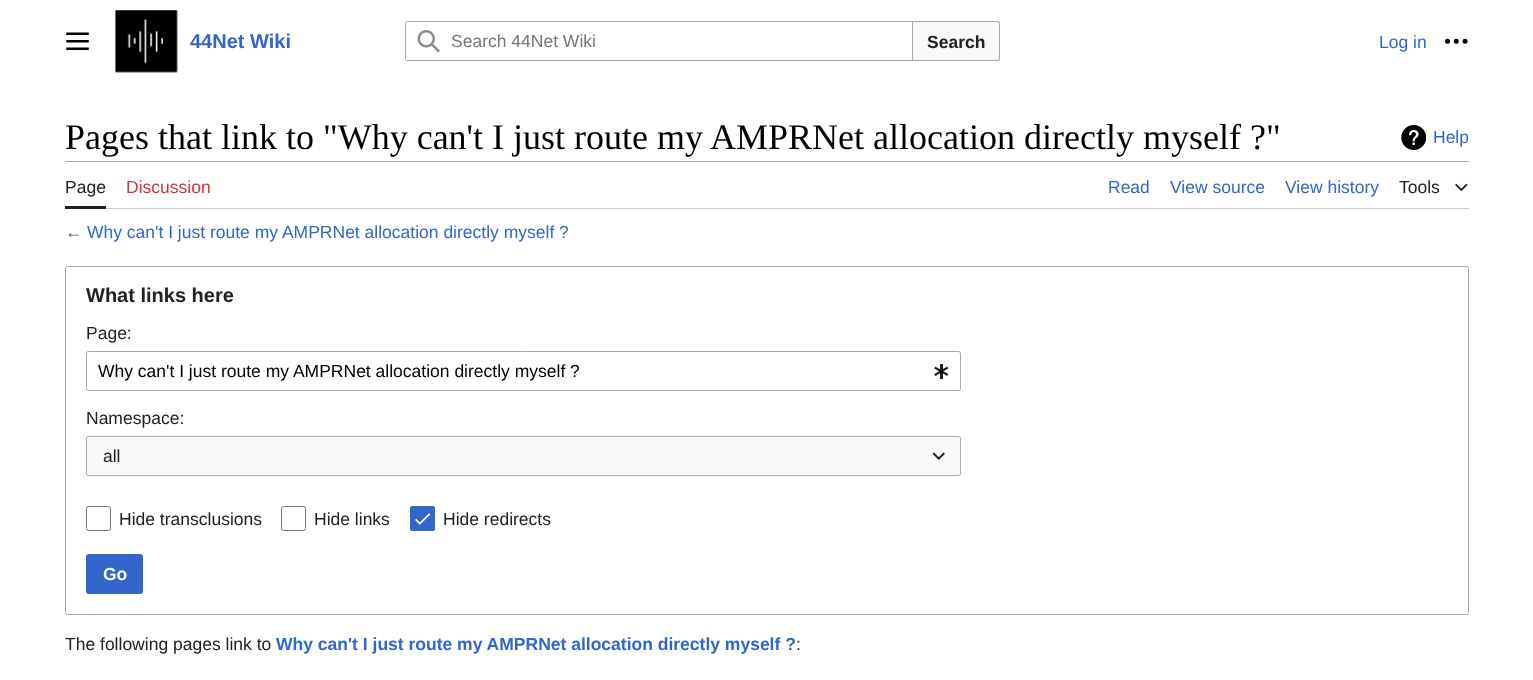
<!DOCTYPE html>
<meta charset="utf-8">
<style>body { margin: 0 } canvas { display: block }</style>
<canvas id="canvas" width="1533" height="680"></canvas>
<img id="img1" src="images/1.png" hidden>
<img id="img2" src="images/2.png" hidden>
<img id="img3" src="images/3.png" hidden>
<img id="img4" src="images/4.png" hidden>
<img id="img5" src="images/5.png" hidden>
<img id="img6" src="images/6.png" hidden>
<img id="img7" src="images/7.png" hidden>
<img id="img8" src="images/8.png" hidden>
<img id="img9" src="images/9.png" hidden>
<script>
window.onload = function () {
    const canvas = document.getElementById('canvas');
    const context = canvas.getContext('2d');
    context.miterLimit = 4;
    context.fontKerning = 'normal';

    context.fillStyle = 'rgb(255, 255, 255)';
    context.fillRect(0, 0, 1533, 680);
    context.drawImage(document.getElementById('img1'), 66, 32, 23, 18);
    context.drawImage(document.getElementById('img2'), 115, 10, 63, 63);
    context.beginPath();
    context.roundRect(405.5, 21.5, 594, 39, 2);
    context.strokeStyle = 'rgb(162, 169, 177)';
    context.stroke();
    context.fillStyle = 'rgb(248, 249, 250)';
    context.beginPath();
    context.roundRect(911.5, 21.5, 88, 39, [0, 2, 2, 0]);
    context.fill();
    context.stroke();
    context.fillStyle = 'rgb(255, 255, 255)';
    context.beginPath();
    context.roundRect(405, 21, 508, 40, [2.5, 0, 0, 2.5]);
    context.fill();
    context.fillStyle = 'rgb(162, 169, 177)';
    context.beginPath();
    context.moveTo(408, 21);
    context.bezierCurveTo(406, 21, 405, 22, 405, 24);
    context.lineTo(405, 58);
    context.bezierCurveTo(405, 60, 406, 61, 408, 61);
    context.lineTo(913, 61);
    context.lineTo(913, 21);
    context.closePath();
    context.moveTo(406, 22);
    context.lineTo(406, 60);
    context.lineTo(912, 60);
    context.lineTo(912, 22);
    context.closePath();
    context.fill('evenodd');
    context.drawImage(document.getElementById('img3'), 417, 30, 23, 23);
    context.drawImage(document.getElementById('img4'), 1444, 38, 24, 6);
    context.drawImage(document.getElementById('img5'), 1401, 125, 25, 25);
    context.fillRect(65, 161, 1404, 1);
    context.fillStyle = 'rgb(200, 204, 209)';
    context.beginPath();
    context.moveTo(65, 208);
    context.lineTo(65, 209);
    context.lineTo(1469, 209);
    context.lineTo(1469, 164);
    context.lineTo(1469, 208);
    context.closePath();
    context.fill();
    context.fillStyle = 'rgb(32, 33, 34)';
    context.fillRect(65, 206, 41, 3);
    context.drawImage(document.getElementById('img6'), 1455, 183, 13, 9);
    context.beginPath();
    context.roundRect(65.5, 266.5, 1403, 348, 2);
    context.stroke();
    context.beginPath();
    context.roundRect(86.5, 351.5, 874, 39, 2);
    context.stroke();
    context.drawImage(document.getElementById('img7'), 934, 364, 15, 15);
    context.fillStyle = 'rgb(248, 249, 250)';
    context.fillRect(86, 436, 875, 40);
    context.beginPath();
    context.roundRect(86.5, 436.5, 874, 39, 2);
    context.stroke();
    context.drawImage(document.getElementById('img8'), 932, 452, 13, 8);
    context.beginPath();
    context.roundRect(86.5, 506.5, 24, 24, 2);
    context.strokeStyle = 'rgb(114, 119, 125)';
    context.stroke();
    context.beginPath();
    context.roundRect(281.5, 506.5, 24, 24, 2);
    context.stroke();
    context.fillStyle = 'rgb(51, 102, 204)';
    context.beginPath();
    context.roundRect(410, 506, 25, 25, 2.5);
    context.fill();
    context.drawImage(document.getElementById('img9'), 415, 513, 16, 12);
    context.beginPath();
    context.roundRect(410.5, 506.5, 24, 24, 2);
    context.strokeStyle = 'rgb(51, 102, 204)';
    context.stroke();
    context.beginPath();
    context.roundRect(86.5, 554.5, 56, 39, 2);
    context.fill();
    context.stroke();
    context.font = 'bold 20px Liberation Sans';
    context.fillText('44Net Wiki', 190, 48);
    context.font = '17.5px Liberation Sans';
    context.fillStyle = 'rgb(114, 119, 125)';
    context.fillText('Search 44Net Wiki', 451, 47);
    context.font = 'bold 17.5px Liberation Sans';
    context.fillStyle = 'rgb(32, 33, 34)';
    context.fillText('Search', 927, 48);
    context.font = '17.5px Liberation Sans';
    context.fillStyle = 'rgb(51, 102, 204)';
    context.fillText('Log in', 1379, 48);
    context.font = '36px Liberation Serif';
    context.fillStyle = 'rgb(0, 0, 0)';
    context.fillText('Pages that link to "Why can\'t I just route my AMPRNet allocation directly myself ?"', 65, 149);
    context.font = '17.5px Liberation Sans';
    context.fillStyle = 'rgb(51, 102, 204)';
    context.fillText('Help', 1433, 143);
    context.fillStyle = 'rgb(32, 33, 34)';
    context.fillText('Page', 65, 193);
    context.fillStyle = 'rgb(215, 51, 51)';
    context.fillText('Discussion', 126, 193);
    context.fillStyle = 'rgb(51, 102, 204)';
    context.fillText('Read', 1108, 193);
    context.fillText('View source', 1170, 193);
    context.fillText('View history', 1285, 193);
    context.fillStyle = 'rgb(32, 33, 34)';
    context.fillText('Tools', 1399, 193);
    context.fillStyle = 'rgb(84, 89, 93)';
    context.fillText('←', 65, 238);
    context.fillStyle = 'rgb(51, 102, 204)';
    context.fillText('Why can\'t I just route my AMPRNet allocation directly myself ?', 87, 238);
    context.font = 'bold 20px Liberation Sans';
    context.fillStyle = 'rgb(32, 33, 34)';
    context.fillText('What links here', 86, 302);
    context.font = '17.5px Liberation Sans';
    context.fillText('Page:', 86, 339);
    context.fillStyle = 'rgb(0, 0, 0)';
    context.fillText('Why can\'t I just route my AMPRNet allocation directly myself ?', 98, 377);
    context.fillStyle = 'rgb(32, 33, 34)';
    context.fillText('Namespace:', 86, 424);
    context.fillText('all', 103, 462);
    context.fillText('Hide transclusions', 119, 525);
    context.fillText('Hide links', 314, 525);
    context.fillText('Hide redirects', 443, 525);
    context.font = 'bold 17.5px Liberation Sans';
    context.fillStyle = 'rgb(255, 255, 255)';
    context.fillText('Go', 103, 580);
    context.font = '17.5px Liberation Sans';
    context.fillStyle = 'rgb(32, 33, 34)';
    context.fillText('The following pages link to', 65, 650);
    context.font = 'bold 17.5px Liberation Sans';
    context.fillStyle = 'rgb(51, 102, 204)';
    context.fillText('Why can\'t I just route my AMPRNet allocation directly myself ?', 276, 650);
    context.font = '17.5px Liberation Sans';
    context.fillStyle = 'rgb(32, 33, 34)';
    context.fillText(':', 796, 650);
};
</script>
